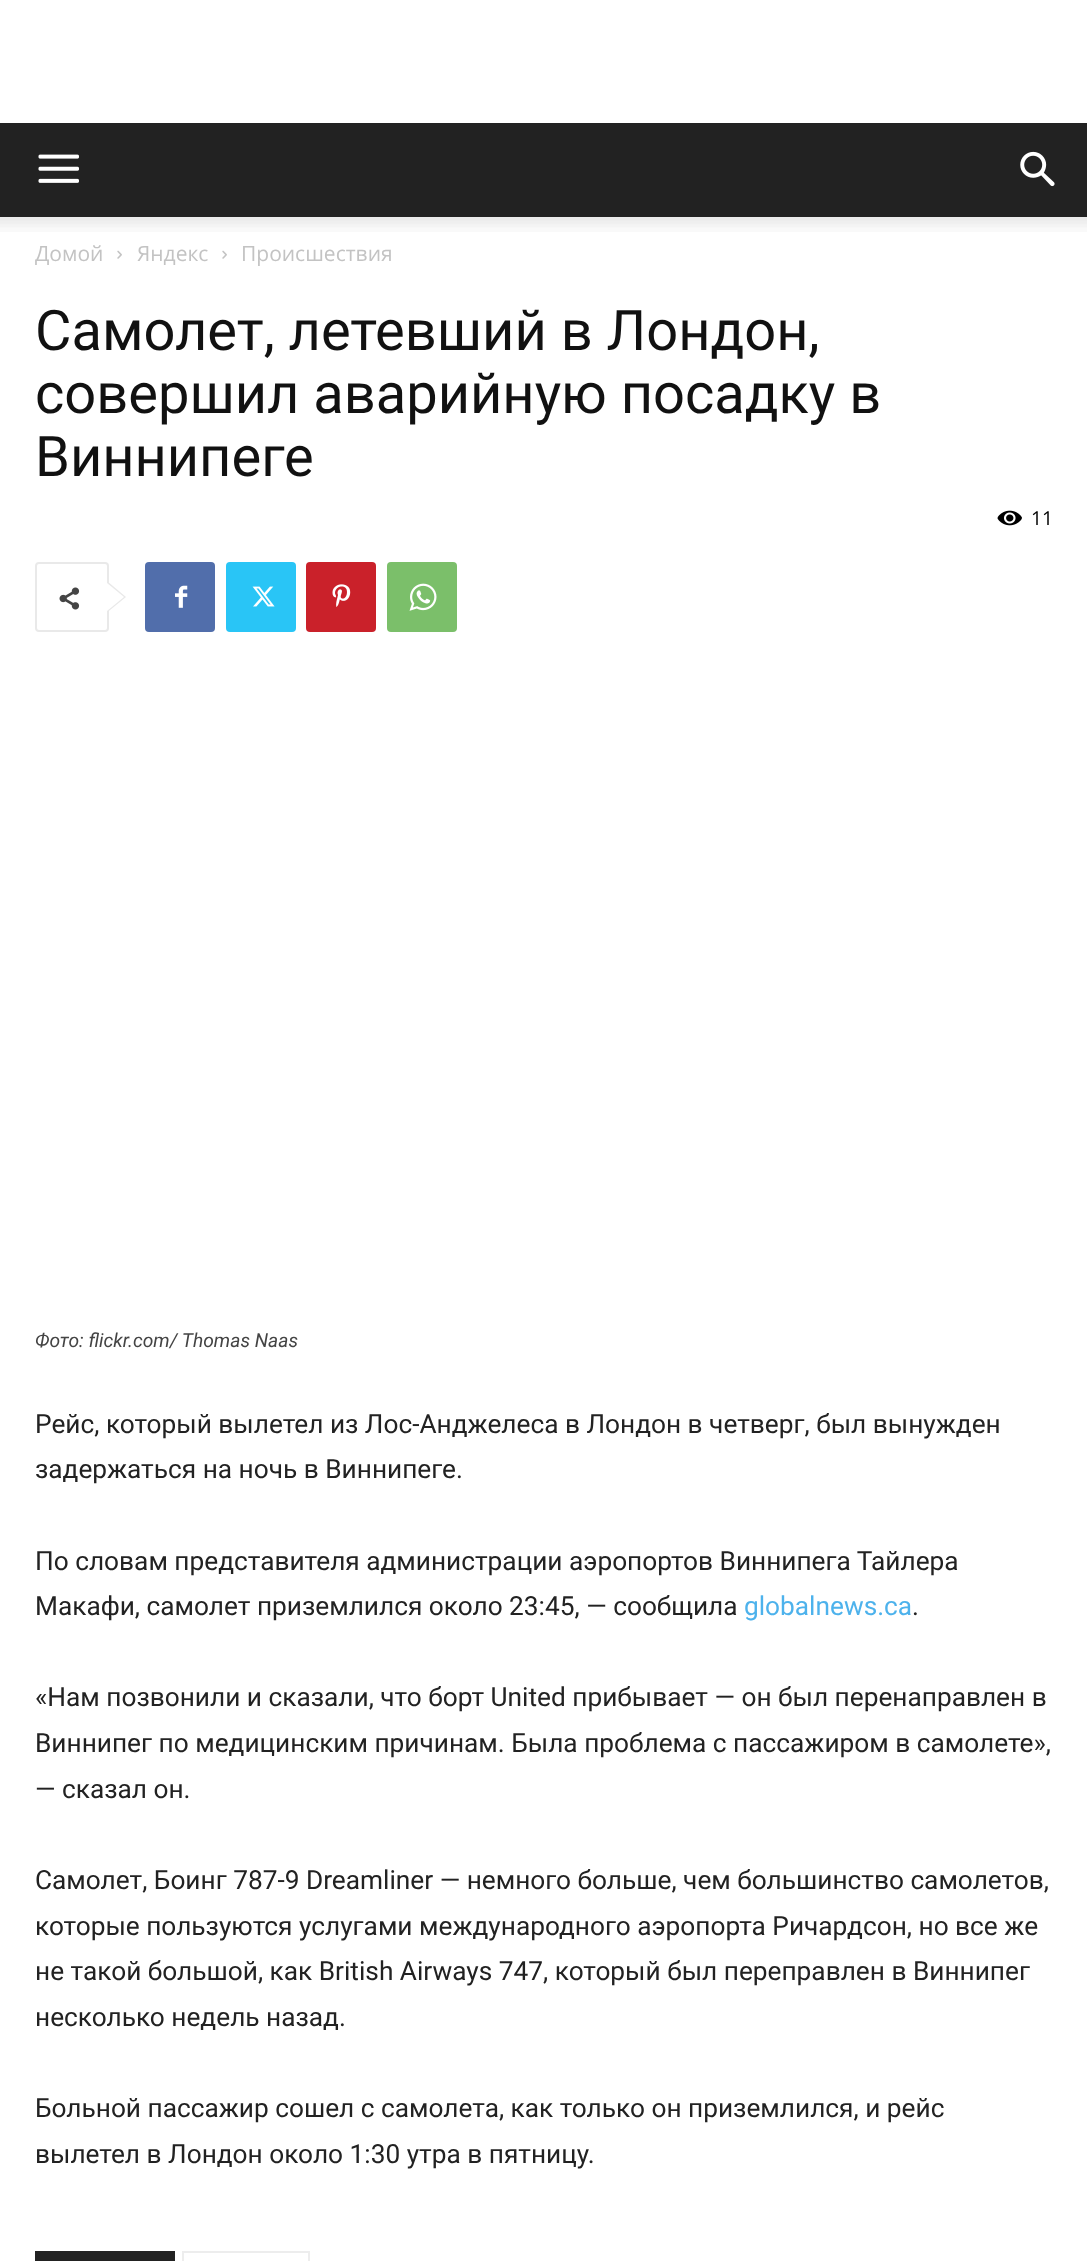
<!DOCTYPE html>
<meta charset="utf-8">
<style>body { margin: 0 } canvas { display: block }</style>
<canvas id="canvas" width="1087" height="2261"></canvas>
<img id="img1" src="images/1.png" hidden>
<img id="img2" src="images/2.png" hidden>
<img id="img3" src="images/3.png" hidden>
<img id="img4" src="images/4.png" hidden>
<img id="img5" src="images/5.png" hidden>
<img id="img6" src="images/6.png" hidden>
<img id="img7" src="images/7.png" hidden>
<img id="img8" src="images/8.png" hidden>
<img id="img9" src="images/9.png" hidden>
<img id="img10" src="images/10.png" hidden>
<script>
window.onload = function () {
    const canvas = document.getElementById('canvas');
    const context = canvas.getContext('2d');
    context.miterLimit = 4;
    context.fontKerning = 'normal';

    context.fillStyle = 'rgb(255, 255, 255)';
    context.fillRect(0, 0, 1087, 2261);
    context.fillStyle = 'rgb(34, 34, 34)';
    context.fillRect(0, 123, 1087, 94);
    context.drawImage(document.getElementById('img1'), 38, 154, 41, 29);
    context.drawImage(document.getElementById('img2'), 1020, 151, 35, 36);
    context.drawImage(document.getElementById('img3'), 0, 217, 1087, 15);
    context.drawImage(document.getElementById('img4'), 117, 250, 5, 9);
    context.drawImage(document.getElementById('img4'), 222, 250, 5, 9);
    context.drawImage(document.getElementById('img5'), 997, 510, 25, 16);
    context.beginPath();
    context.roundRect(36, 563, 72, 68, 3);
    context.strokeStyle = 'rgb(233, 233, 233)';
    context.lineWidth = 2;
    context.stroke();
    context.fillStyle = 'rgb(233, 233, 233)';
    context.beginPath();
    context.moveTo(107, 612.5);
    context.lineTo(107, 581);
    context.lineTo(126, 597);
    context.closePath();
    context.fill();
    context.drawImage(document.getElementById('img6'), 59, 587, 21, 23);
    context.fillStyle = 'rgb(255, 255, 255)';
    context.beginPath();
    context.moveTo(107, 611);
    context.lineTo(107, 583);
    context.lineTo(124, 597);
    context.closePath();
    context.fill();
    context.fillStyle = 'rgb(81, 110, 171)';
    context.beginPath();
    context.roundRect(145, 562, 70, 70, 4);
    context.fill();
    context.drawImage(document.getElementById('img7'), 175, 585, 13, 23);
    context.fillStyle = 'rgb(41, 197, 246)';
    context.beginPath();
    context.roundRect(226, 562, 70, 70, 4);
    context.fill();
    context.drawImage(document.getElementById('img8'), 252, 586, 23, 21);
    context.fillStyle = 'rgb(202, 33, 42)';
    context.beginPath();
    context.roundRect(306, 562, 70, 70, 4);
    context.fill();
    context.drawImage(document.getElementById('img9'), 332, 584, 19, 23);
    context.fillStyle = 'rgb(123, 191, 106)';
    context.beginPath();
    context.roundRect(387, 562, 70, 70, 4);
    context.fill();
    context.drawImage(document.getElementById('img10'), 409, 583, 28, 28);
    context.fillStyle = 'rgb(34, 34, 34)';
    context.fillRect(35, 2251, 140, 10);
    context.strokeStyle = 'rgb(237, 237, 237)';
    context.strokeRect(183, 2252, 126, 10);
    context.font = '21px Open Sans';
    context.fillStyle = 'rgb(195, 195, 195)';
    context.fillText('Домой', 35, 261);
    context.fillText('Яндекс', 137, 261);
    context.fillText('Происшествия', 241, 261);
    context.font = '56px Roboto';
    context.fillStyle = 'rgb(17, 17, 17)';
    context.fillText('Самолет, летевший в Лондон,', 35, 350);
    context.fillText('совершил аварийную посадку в', 35, 413);
    context.fillText('Виннипеге', 35, 476);
    context.font = '19.25px Open Sans';
    context.fillStyle = 'rgb(0, 0, 0)';
    context.fillText('11', 1031, 525);
    context.font = 'italic 19.25px Roboto';
    context.fillStyle = 'rgb(68, 68, 68)';
    context.fillText('Фото: flickr.com/ Thomas Naas', 35, 1347);
    context.font = '26.25px Roboto';
    context.fillStyle = 'rgb(34, 34, 34)';
    context.fillText('Рейс, который вылетел из Лос-Анджелеса в Лондон в четверг, был вынужден', 35, 1433);
    context.fillText('задержаться на ночь в Виннипеге.', 35, 1478);
    context.fillText('По словам представителя администрации аэропортов Виннипега Тайлера', 35, 1570);
    context.fillText('Макафи, самолет приземлился около 23:45, — сообщила', 35, 1615);
    context.fillStyle = 'rgb(77, 178, 236)';
    context.fillText('globalnews.ca', 744, 1615);
    context.fillStyle = 'rgb(34, 34, 34)';
    context.fillText('.', 912, 1615);
    context.fillText('«Нам позвонили и сказали, что борт United прибывает — он был перенаправлен в', 35, 1706);
    context.fillText('Виннипег по медицинским причинам. Была проблема с пассажиром в самолете»,', 35, 1752);
    context.fillText('— сказал он.', 35, 1798);
    context.fillText('Самолет, Боинг 787-9 Dreamliner — немного больше, чем большинство самолетов,', 35, 1889);
    context.fillText('которые пользуются услугами международного аэропорта Ричардсон, но все же', 35, 1935);
    context.fillText('не такой большой, как British Airways 747, который был переправлен в Виннипег', 35, 1980);
    context.fillText('несколько недель назад.', 35, 2026);
    context.fillText('Больной пассажир сошел с самолета, как только он приземлился, и рейс', 35, 2117);
    context.fillText('вылетел в Лондон около 1:30 утра в пятницу.', 35, 2163);
};
</script>
